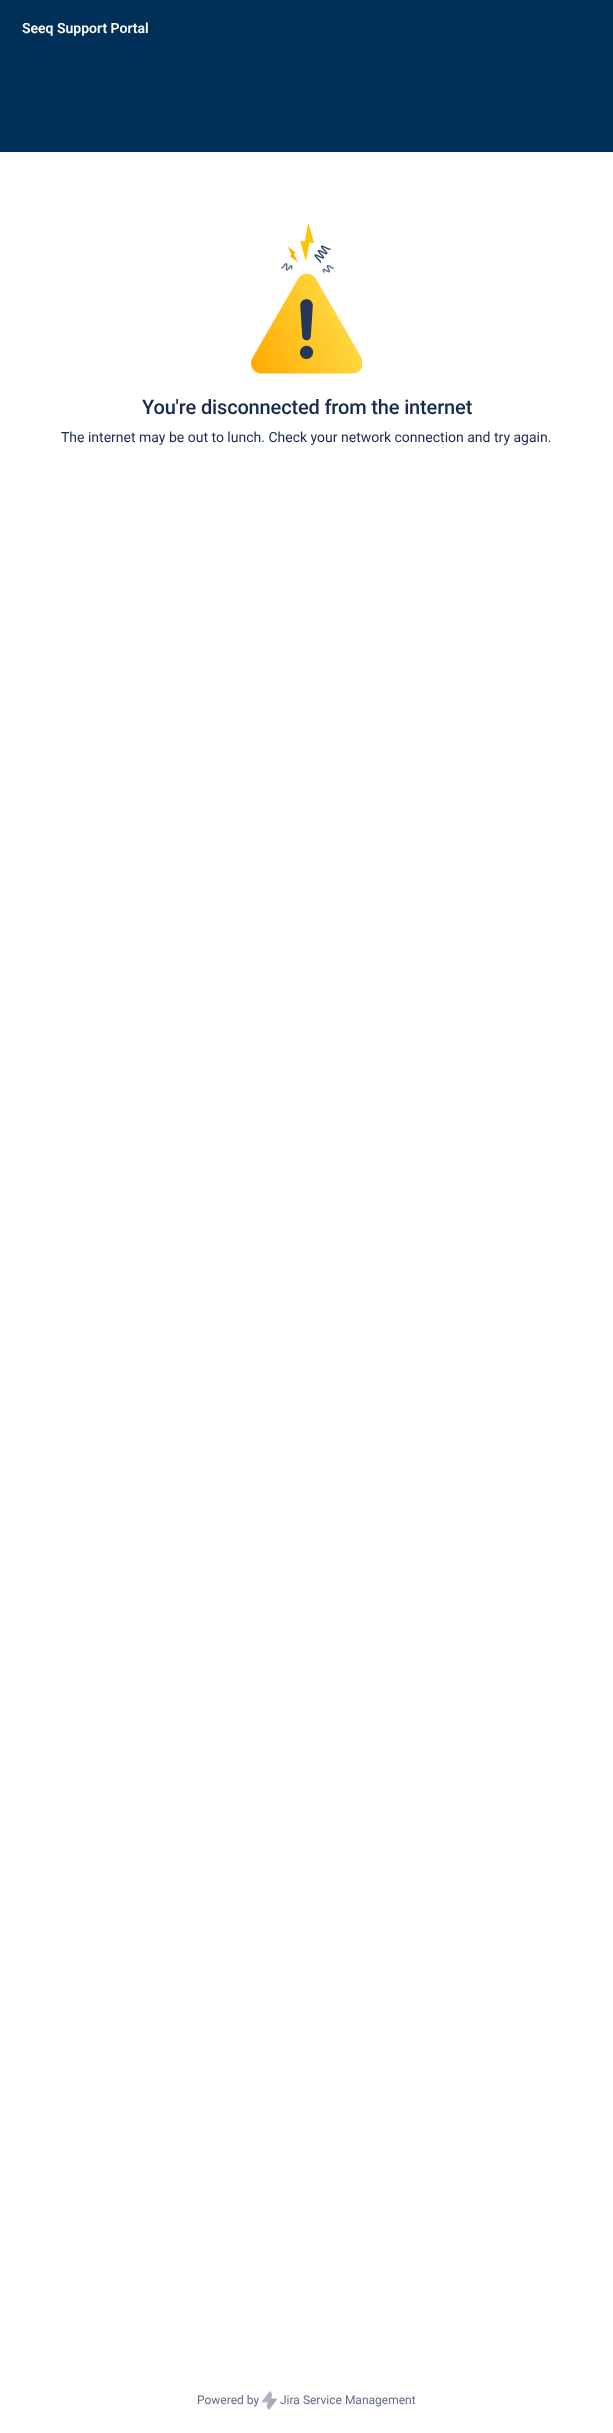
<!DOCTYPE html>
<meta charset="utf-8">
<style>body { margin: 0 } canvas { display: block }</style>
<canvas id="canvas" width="613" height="2433"></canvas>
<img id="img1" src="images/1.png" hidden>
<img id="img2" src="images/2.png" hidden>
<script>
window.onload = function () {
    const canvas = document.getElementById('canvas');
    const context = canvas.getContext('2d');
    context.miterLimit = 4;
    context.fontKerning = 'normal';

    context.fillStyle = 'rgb(255, 255, 255)';
    context.fillRect(0, 0, 613, 2433);
    context.fillStyle = 'rgb(0, 48, 87)';
    context.fillRect(0, 0, 613, 152);
    context.drawImage(document.getElementById('img1'), 251, 224, 111, 150);
    context.drawImage(document.getElementById('img2'), 262, 2391, 15, 19);
    context.font = '600 14px Roboto';
    context.fillStyle = 'rgb(255, 255, 255)';
    context.fillText('Seeq Support Portal', 22, 33);
    context.letterSpacing = '-0.15px';
    context.font = '500 20px Roboto';
    context.fillStyle = 'rgb(23, 43, 77)';
    context.fillText('You\'re disconnected from the internet', 142, 414);
    context.letterSpacing = '0px';
    context.font = '14px Roboto';
    context.fillText('The internet may be out to lunch. Check your network connection and try again.', 61, 442);
    context.font = '12px Roboto';
    context.fillStyle = 'rgb(94, 108, 132)';
    context.fillText('Powered by', 197, 2404);
    context.fillText('Jira Service Management', 280, 2404);
};
</script>
